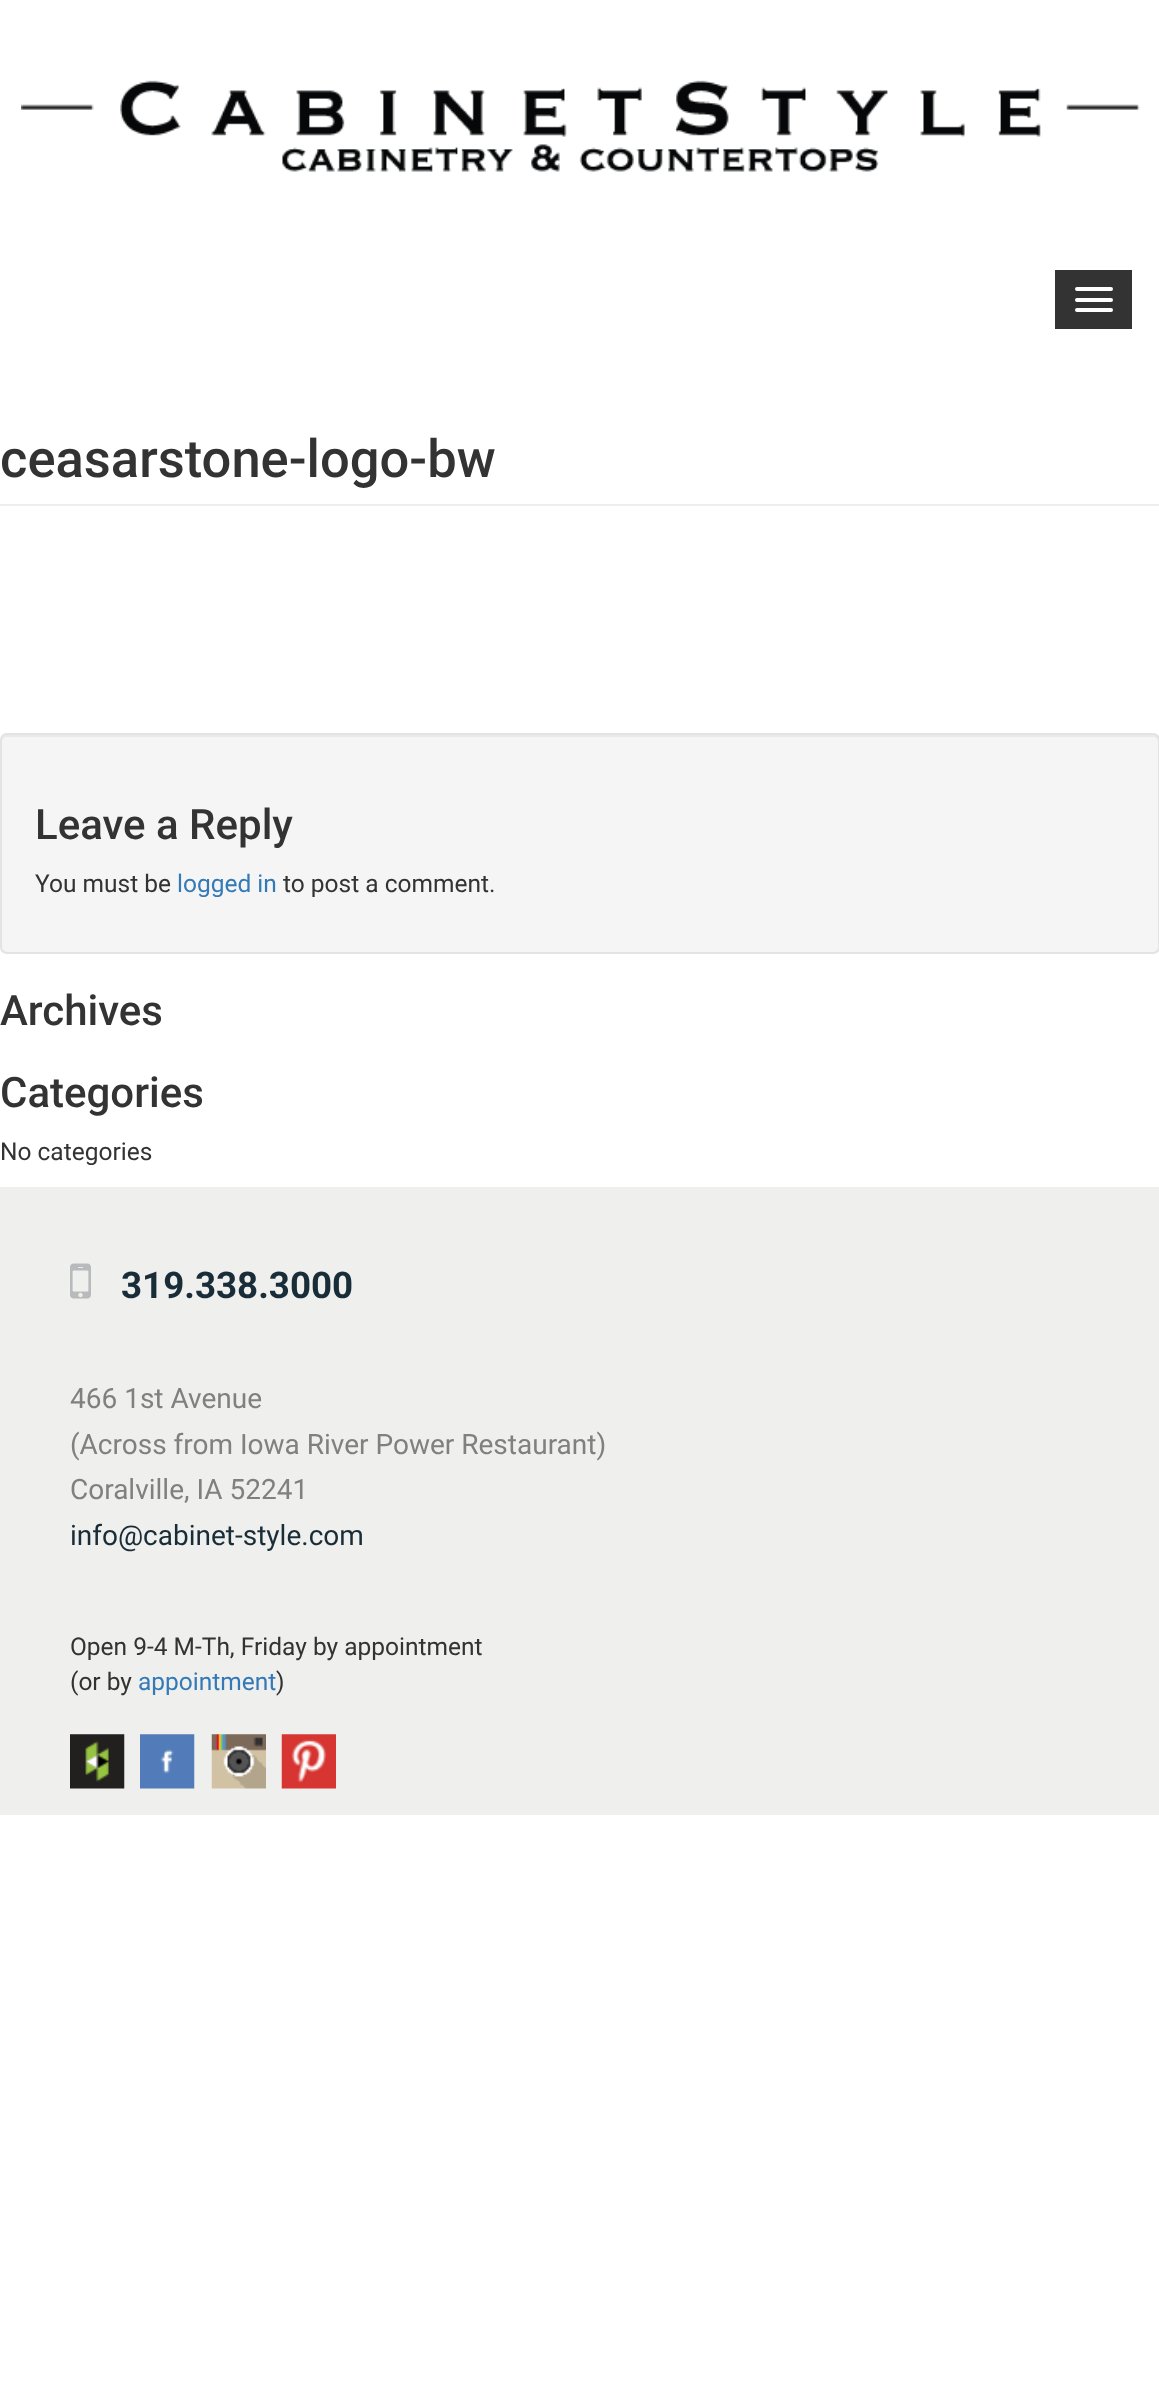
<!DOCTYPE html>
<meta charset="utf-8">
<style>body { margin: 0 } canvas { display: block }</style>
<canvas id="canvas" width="1159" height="2395"></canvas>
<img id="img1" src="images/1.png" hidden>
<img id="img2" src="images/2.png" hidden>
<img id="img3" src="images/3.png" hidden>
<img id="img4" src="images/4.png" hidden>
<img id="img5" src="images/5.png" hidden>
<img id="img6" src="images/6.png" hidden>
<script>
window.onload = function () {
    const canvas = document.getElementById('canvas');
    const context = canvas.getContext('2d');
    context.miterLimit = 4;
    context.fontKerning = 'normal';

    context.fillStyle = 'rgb(255, 255, 255)';
    context.fillRect(0, 0, 1159, 2395);
    context.drawImage(document.getElementById('img1'), 21, 80, 1119, 92);
    context.fillStyle = 'rgb(51, 51, 51)';
    context.fillRect(1055, 270, 77, 59);
    context.fillStyle = 'rgb(255, 255, 255)';
    context.beginPath();
    context.roundRect(1075, 287, 38, 4, 2);
    context.fill();
    context.beginPath();
    context.roundRect(1075, 298, 38, 4, 2);
    context.fill();
    context.beginPath();
    context.roundRect(1075, 308, 38, 4, 2);
    context.fill();
    context.fillStyle = 'rgb(238, 238, 238)';
    context.fillRect(0, 504, 1159, 2);
    context.fillStyle = 'rgb(245, 245, 245)';
    context.beginPath();
    context.roundRect(0, 733, 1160, 221, 7);
    context.fill();
    context.fillStyle = 'rgb(233, 233, 233)';
    context.beginPath();
    context.moveTo(7, 737);
    context.lineTo(1153, 737);
    context.bezierCurveTo(1156, 737, 1158, 739, 1158, 742);
    context.lineTo(1158, 948);
    context.lineTo(1158, 951);
    context.bezierCurveTo(1158, 950, 1159, 948, 1159, 947);
    context.lineTo(1159, 740);
    context.bezierCurveTo(1159, 737, 1157, 735, 1154, 735);
    context.lineTo(7, 735);
    context.bezierCurveTo(4, 735, 2, 737, 2, 740);
    context.lineTo(2, 742);
    context.bezierCurveTo(2, 739, 4, 737, 7, 737);
    context.closePath();
    context.fill();
    context.beginPath();
    context.roundRect(1, 734, 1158, 219, 6);
    context.strokeStyle = 'rgb(227, 227, 227)';
    context.lineWidth = 2;
    context.stroke();
    context.fillStyle = 'rgb(239, 239, 238)';
    context.fillRect(0, 1187, 1159, 628);
    context.drawImage(document.getElementById('img2'), 70, 1263, 21, 36);
    context.drawImage(document.getElementById('img3'), 70, 1734, 55, 55);
    context.drawImage(document.getElementById('img4'), 140, 1734, 55, 55);
    context.drawImage(document.getElementById('img5'), 211, 1734, 55, 55);
    context.drawImage(document.getElementById('img6'), 281, 1734, 55, 55);
    context.font = '500 52.5px Roboto';
    context.fillStyle = 'rgb(51, 51, 51)';
    context.fillText('ceasarstone-logo-bw', 0, 477);
    context.font = '500 42px Roboto';
    context.fillText('Leave a Reply', 35, 839);
    context.font = '24.5px Roboto';
    context.fillText('You must be', 35, 892);
    context.fillStyle = 'rgb(51, 122, 183)';
    context.fillText('logged in', 177, 892);
    context.fillStyle = 'rgb(51, 51, 51)';
    context.fillText('to post a comment.', 283, 892);
    context.font = '500 42px Roboto';
    context.fillText('Archives', 0, 1025);
    context.fillText('Categories', 0, 1107);
    context.font = '24.5px Roboto';
    context.fillText('No categories', 0, 1160);
    context.font = 'bold 36.75px Roboto';
    context.fillStyle = 'rgb(25, 45, 56)';
    context.fillText('319.338.3000', 121, 1298);
    context.font = '28px Roboto';
    context.fillStyle = 'rgb(128, 128, 129)';
    context.fillText('466 1st Avenue', 70, 1408);
    context.fillText('(Across from Iowa River Power Restaurant)', 70, 1454);
    context.fillText('Coralville, IA 52241', 70, 1499);
    context.fillStyle = 'rgb(25, 45, 56)';
    context.fillText('info@cabinet-style.com', 70, 1545);
    context.font = '24.5px Roboto';
    context.fillStyle = 'rgb(51, 51, 51)';
    context.fillText('Open 9-4 M-Th, Friday by appointment', 70, 1655);
    context.fillText('(or by', 70, 1690);
    context.fillStyle = 'rgb(51, 122, 183)';
    context.fillText('appointment', 138, 1690);
    context.fillStyle = 'rgb(51, 51, 51)';
    context.fillText(')', 276, 1690);
};
</script>
